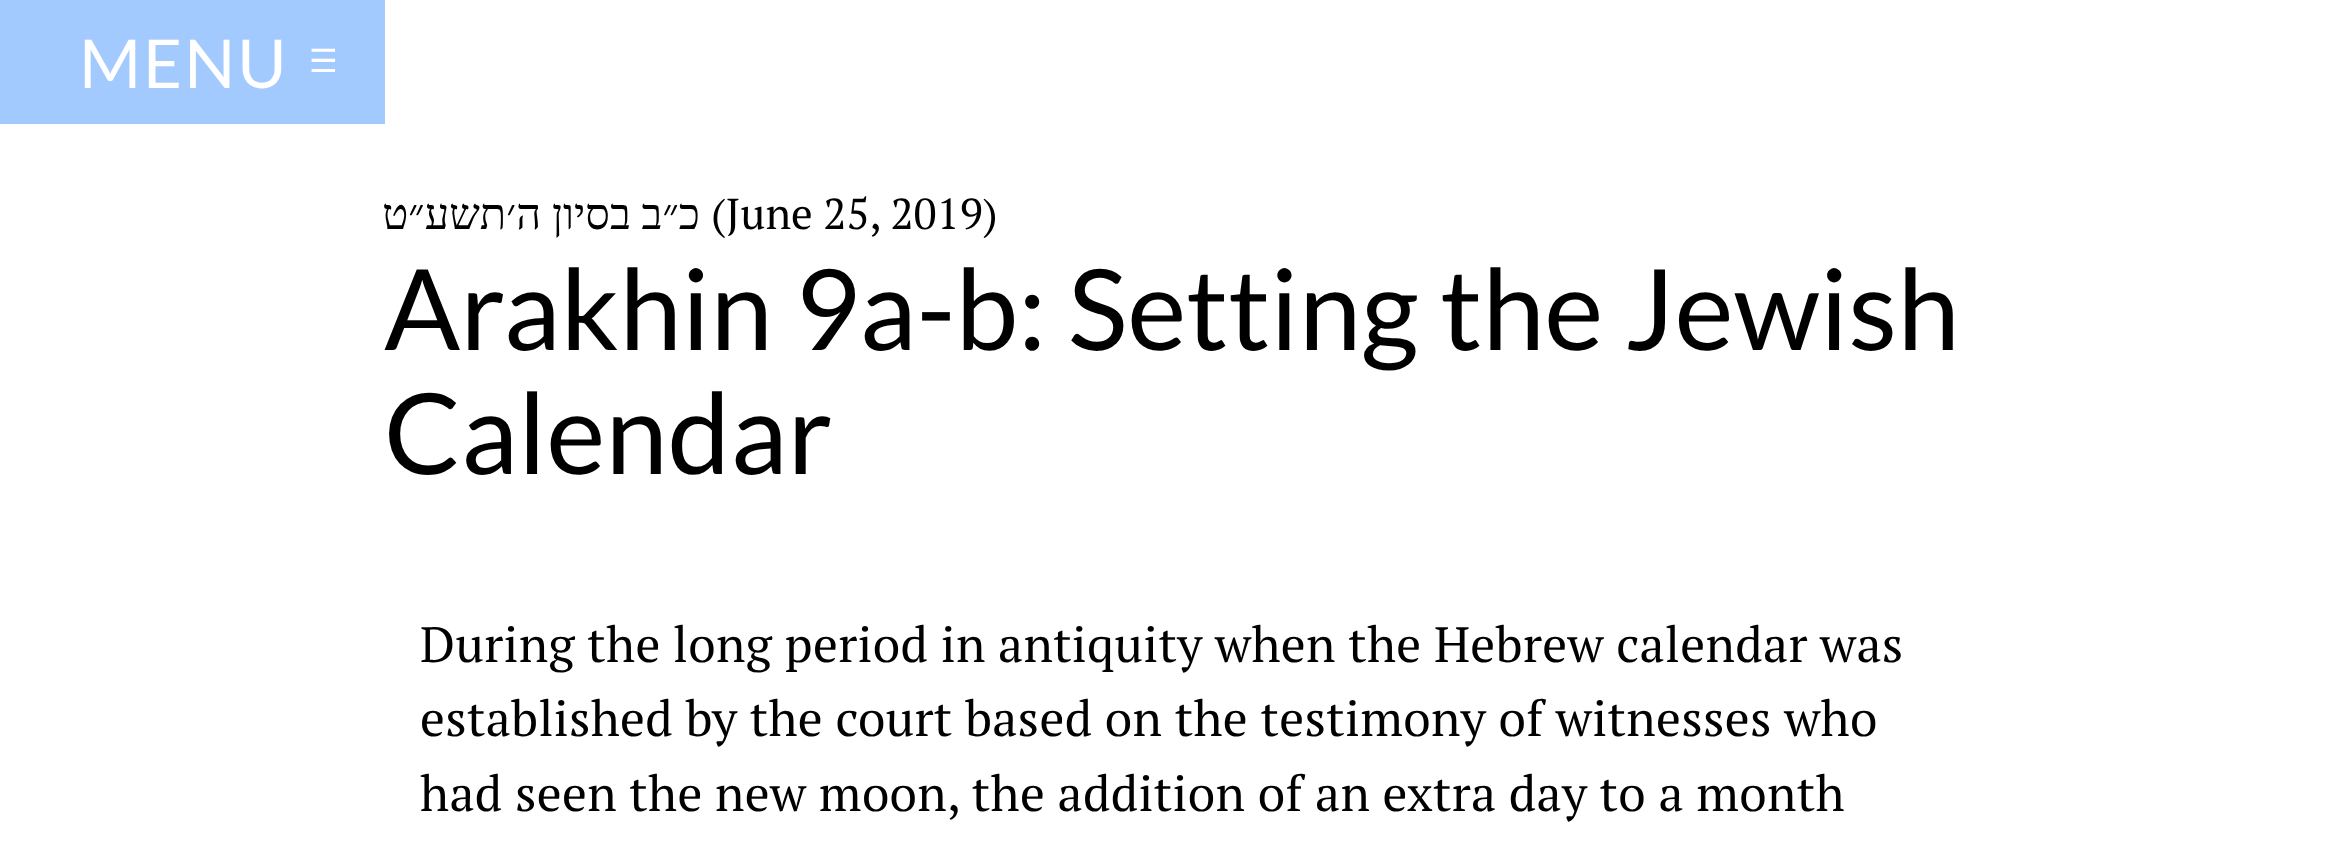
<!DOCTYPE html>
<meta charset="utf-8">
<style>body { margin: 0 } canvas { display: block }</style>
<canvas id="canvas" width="2342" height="854"></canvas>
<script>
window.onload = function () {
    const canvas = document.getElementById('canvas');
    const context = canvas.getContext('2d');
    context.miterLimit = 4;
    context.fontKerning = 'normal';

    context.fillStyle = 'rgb(255, 255, 255)';
    context.fillRect(0, 0, 2342, 854);
    context.fillStyle = 'rgb(163, 202, 255)';
    context.fillRect(0, 0, 385, 124);
    context.letterSpacing = '2px';
    context.font = '67.5px Lato';
    context.fillStyle = 'rgb(255, 255, 255)';
    context.fillText('MENU', 79, 88);
    context.letterSpacing = '0px';
    context.font = '32px DejaVu Sans';
    context.fillText('☰', 309, 72);
    context.direction = 'rtl';
    context.font = '43.25px Liberation Serif';
    context.fillStyle = 'rgb(0, 0, 0)';
    context.fillText('כ״ב בסיון ה׳תשע״ט', 700, 229);
    context.direction = 'ltr';
    context.font = '43.25px PT Serif';
    context.fillText('(June 25, 2019)', 711, 229);
    context.font = '112.25px Lato';
    context.fillText('Arakhin 9a-b: Setting the Jewish', 384, 350);
    context.fillText('Calendar', 384, 474);
    context.letterSpacing = '0.35px';
    context.font = '49.5px PT Serif';
    context.fillText('During the long period in antiquity when the Hebrew calendar was', 420, 662);
    context.fillText('established by the court based on the testimony of witnesses who', 420, 736);
    context.fillText('had seen the new moon, the addition of an extra day to a month', 420, 811);
};
</script>
